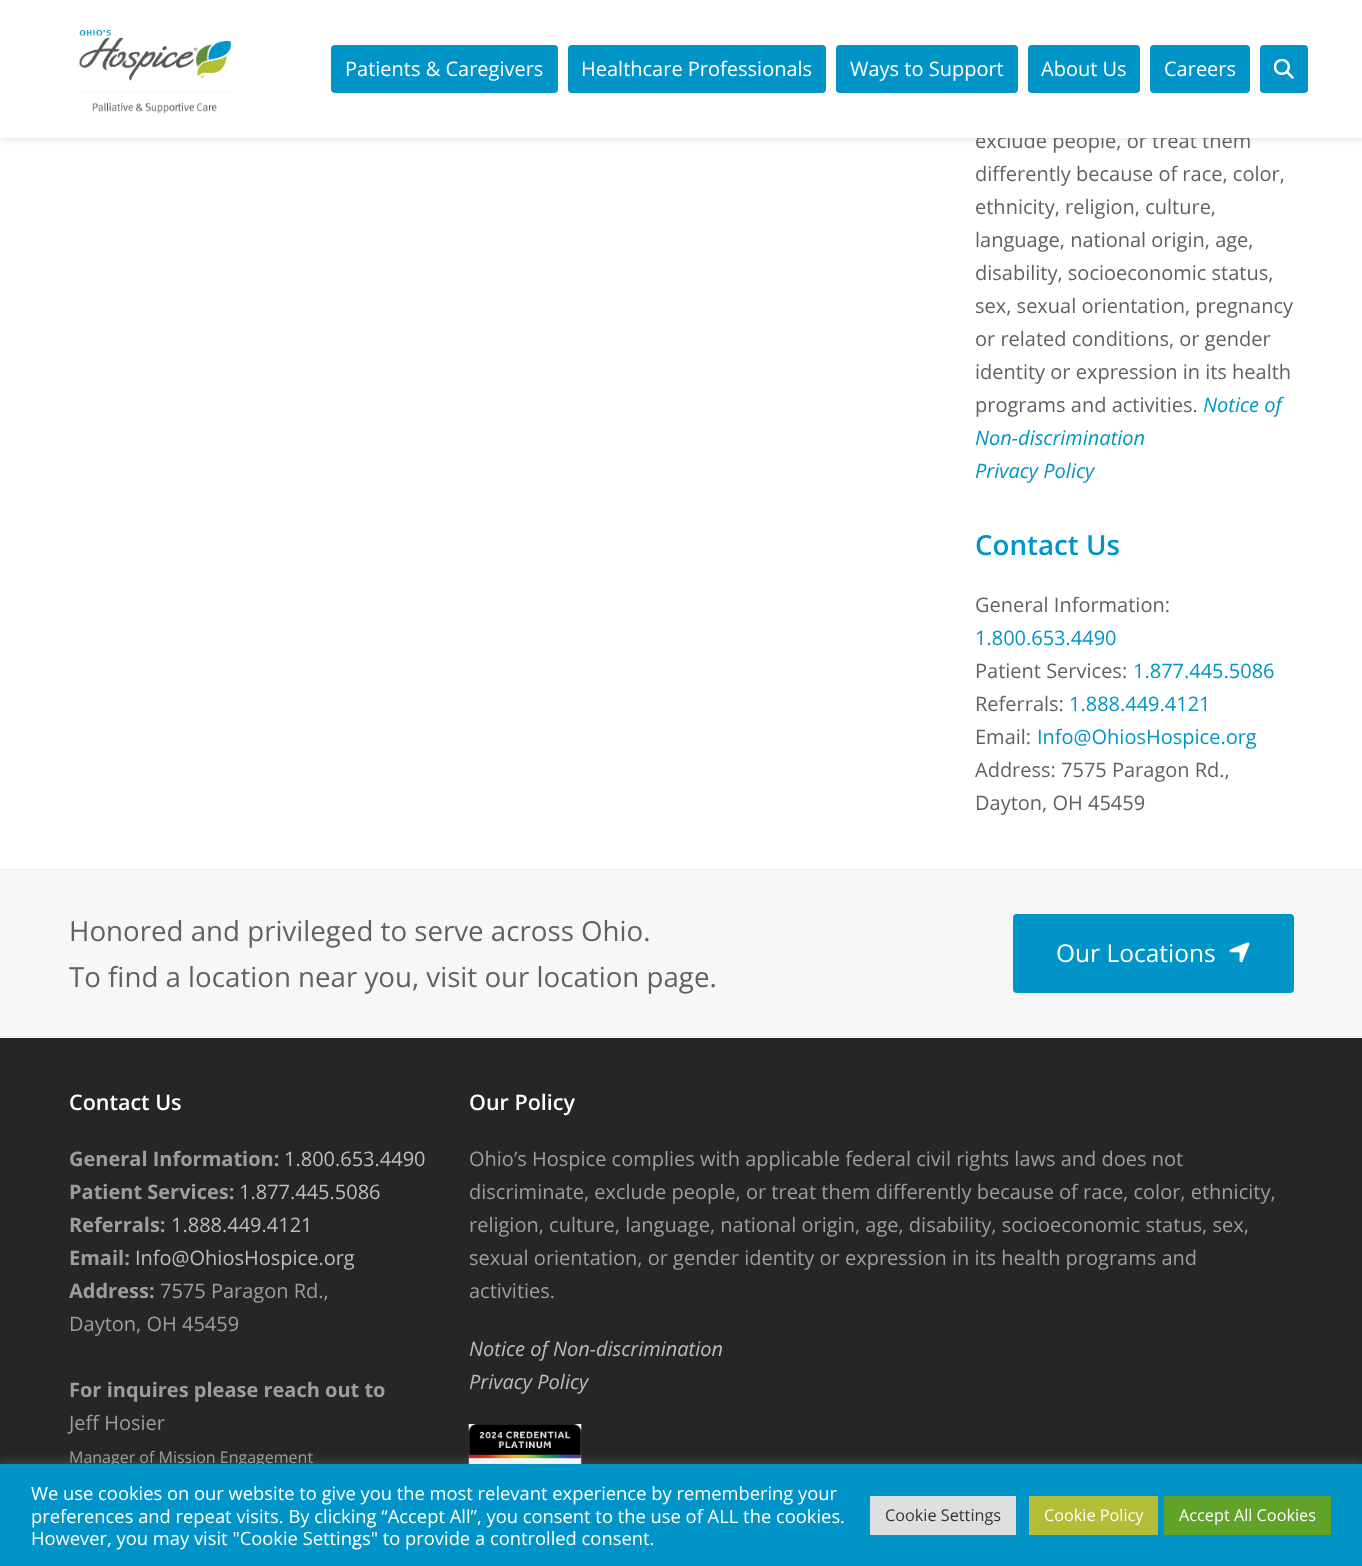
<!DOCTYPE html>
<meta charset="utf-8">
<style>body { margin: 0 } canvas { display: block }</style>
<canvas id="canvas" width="1362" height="1566"></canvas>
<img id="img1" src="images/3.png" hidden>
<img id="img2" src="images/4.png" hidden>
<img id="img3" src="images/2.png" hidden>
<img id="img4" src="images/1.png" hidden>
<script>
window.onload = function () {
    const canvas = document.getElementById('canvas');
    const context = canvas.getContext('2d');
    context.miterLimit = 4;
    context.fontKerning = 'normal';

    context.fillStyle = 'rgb(255, 255, 255)';
    context.fillRect(0, 0, 1362, 1566);
    context.fillStyle = 'rgba(0, 0, 0, 0.1)';
    context.filter = 'blur(3px)';
    context.beginPath();
    context.rect(0, 3, 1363, 137);
    context.fill();
    context.filter = 'none';
    context.fillStyle = 'rgb(247, 247, 247)';
    context.fillRect(0, 870, 1362, 166);
    context.fillStyle = 'rgb(238, 238, 238)';
    context.fillRect(0, 869, 1362, 1);
    context.fillRect(0, 1036, 1362, 1);
    context.fillStyle = 'rgb(0, 148, 200)';
    context.beginPath();
    context.roundRect(1013, 914, 281, 79, 4);
    context.fill();
    context.drawImage(document.getElementById('img1'), 1229, 942, 21, 21);
    context.fillStyle = 'rgb(38, 38, 38)';
    context.fillRect(0, 1038, 1362, 426);
    context.drawImage(document.getElementById('img2'), 468, 1424, 114, 40);
    context.fillStyle = 'rgba(172, 171, 171, 0.3)';
    context.filter = 'blur(6px)';
    context.beginPath();
    context.rect(0, 1463, 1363, 102);
    context.fill();
    context.filter = 'none';
    context.font = '20px Open Sans';
    context.fillStyle = 'rgb(97, 97, 97)';
    context.fillText('exclude people, or treat them', 975, 148);
    context.fillStyle = 'rgb(255, 255, 255)';
    context.fillRect(0, 0, 1362, 138);
    context.fillStyle = 'rgb(0, 148, 200)';
    context.beginPath();
    context.roundRect(1260, 45, 48, 48, 4);
    context.fill();
    context.drawImage(document.getElementById('img3'), 1274, 59, 20, 20);
    context.beginPath();
    context.roundRect(1150, 45, 100, 48, 4);
    context.fill();
    context.fillStyle = 'rgb(255, 255, 255)';
    context.fillText('Careers', 1164, 76);
    context.fillStyle = 'rgb(0, 148, 200)';
    context.beginPath();
    context.roundRect(1028, 45, 112, 48, 4);
    context.fill();
    context.fillStyle = 'rgb(255, 255, 255)';
    context.fillText('About Us', 1041, 76);
    context.fillStyle = 'rgb(0, 148, 200)';
    context.beginPath();
    context.roundRect(836, 45, 182, 48, 4);
    context.fill();
    context.fillStyle = 'rgb(255, 255, 255)';
    context.fillText('Ways to Support', 850, 76);
    context.fillStyle = 'rgb(0, 148, 200)';
    context.beginPath();
    context.roundRect(568, 45, 258, 48, 4);
    context.fill();
    context.fillStyle = 'rgb(255, 255, 255)';
    context.fillText('Healthcare Professionals', 581, 76);
    context.fillStyle = 'rgb(0, 148, 200)';
    context.beginPath();
    context.roundRect(331, 45, 227, 48, 4);
    context.fill();
    context.fillStyle = 'rgb(255, 255, 255)';
    context.fillText('Patients & Caregivers', 345, 76);
    context.drawImage(document.getElementById('img4'), 79, 29, 153, 85);
    context.fillStyle = 'rgb(97, 97, 97)';
    context.fillText('differently because of race, color,', 975, 181);
    context.fillText('ethnicity, religion, culture,', 975, 214);
    context.fillText('language, national origin, age,', 975, 247);
    context.fillText('disability, socioeconomic status,', 975, 280);
    context.fillText('sex, sexual orientation, pregnancy', 975, 313);
    context.fillText('or related conditions, or gender', 975, 346);
    context.fillText('identity or expression in its health', 975, 379);
    context.fillText('programs and activities.', 975, 412);
    context.font = 'italic 20px Open Sans';
    context.fillStyle = 'rgb(0, 148, 200)';
    context.fillText('Notice of', 1203, 412);
    context.fillText('Non-discrimination', 975, 445);
    context.fillText('Privacy Policy', 975, 478);
    context.font = '600 27.7px Open Sans';
    context.fillText('Contact Us', 975, 555);
    context.font = '20px Open Sans';
    context.fillStyle = 'rgb(97, 97, 97)';
    context.fillText('General Information:', 975, 612);
    context.fillStyle = 'rgb(0, 148, 200)';
    context.fillText('1.800.653.4490', 975, 645);
    context.fillStyle = 'rgb(97, 97, 97)';
    context.fillText('Patient Services:', 975, 678);
    context.fillStyle = 'rgb(0, 148, 200)';
    context.fillText('1.877.445.5086', 1133, 678);
    context.fillStyle = 'rgb(97, 97, 97)';
    context.fillText('Referrals:', 975, 711);
    context.fillStyle = 'rgb(0, 148, 200)';
    context.fillText('1.888.449.4121', 1069, 711);
    context.fillStyle = 'rgb(97, 97, 97)';
    context.fillText('Email:', 975, 744);
    context.fillStyle = 'rgb(0, 148, 200)';
    context.fillText('Info@OhiosHospice.org', 1037, 744);
    context.fillStyle = 'rgb(97, 97, 97)';
    context.fillText('Address: 7575 Paragon Rd.,', 975, 777);
    context.fillText('Dayton, OH 45459', 975, 810);
    context.font = '27.7px Open Sans';
    context.fillText('Honored and privileged to serve across Ohio.', 69, 941);
    context.fillText('To find a location near you, visit our location page.', 69, 987);
    context.font = '24.5px Open Sans';
    context.fillStyle = 'rgb(255, 255, 255)';
    context.fillText('Our Locations', 1056, 962);
    context.font = '600 21.5px Open Sans';
    context.fillText('Contact Us', 69, 1110);
    context.font = 'bold 20px Open Sans';
    context.fillStyle = 'rgb(158, 158, 158)';
    context.fillText('General Information:', 69, 1166);
    context.font = '20px Open Sans';
    context.fillStyle = 'rgb(189, 189, 189)';
    context.fillText('1.800.653.4490', 284, 1166);
    context.font = 'bold 20px Open Sans';
    context.fillStyle = 'rgb(158, 158, 158)';
    context.fillText('Patient Services:', 69, 1199);
    context.font = '20px Open Sans';
    context.fillStyle = 'rgb(189, 189, 189)';
    context.fillText('1.877.445.5086', 239, 1199);
    context.font = 'bold 20px Open Sans';
    context.fillStyle = 'rgb(158, 158, 158)';
    context.fillText('Referrals:', 69, 1232);
    context.font = '20px Open Sans';
    context.fillStyle = 'rgb(189, 189, 189)';
    context.fillText('1.888.449.4121', 171, 1232);
    context.font = 'bold 20px Open Sans';
    context.fillStyle = 'rgb(158, 158, 158)';
    context.fillText('Email:', 69, 1265);
    context.font = '20px Open Sans';
    context.fillStyle = 'rgb(189, 189, 189)';
    context.fillText('Info@OhiosHospice.org', 135, 1265);
    context.font = 'bold 20px Open Sans';
    context.fillStyle = 'rgb(158, 158, 158)';
    context.fillText('Address:', 69, 1298);
    context.font = '20px Open Sans';
    context.fillText('7575 Paragon Rd.,', 160, 1298);
    context.fillText('Dayton, OH 45459', 69, 1331);
    context.font = 'bold 20px Open Sans';
    context.fillText('For inquires please reach out to', 69, 1397);
    context.font = '20px Open Sans';
    context.fillText('Jeff Hosier', 69, 1430);
    context.font = '16px Open Sans';
    context.fillText('Manager of Mission Engagement', 69, 1463);
    context.font = '600 21.5px Open Sans';
    context.fillStyle = 'rgb(255, 255, 255)';
    context.fillText('Our Policy', 469, 1110);
    context.font = '20px Open Sans';
    context.fillStyle = 'rgb(158, 158, 158)';
    context.fillText('Ohio’s Hospice complies with applicable federal civil rights laws and does not', 469, 1166);
    context.fillText('discriminate, exclude people, or treat them differently because of race, color, ethnicity,', 469, 1199);
    context.fillText('religion, culture, language, national origin, age, disability, socioeconomic status, sex,', 469, 1232);
    context.fillText('sexual orientation, or gender identity or expression in its health programs and', 469, 1265);
    context.fillText('activities.', 469, 1298);
    context.font = 'italic 20px Open Sans';
    context.fillStyle = 'rgb(189, 189, 189)';
    context.fillText('Notice of Non-discrimination', 469, 1356);
    context.fillText('Privacy Policy', 469, 1389);
    context.fillStyle = 'rgb(0, 148, 200)';
    context.fillRect(0, 1464, 1362, 102);
    context.font = '18.35px Open Sans';
    context.fillStyle = 'rgb(255, 255, 255)';
    context.fillText('We use cookies on our website to give you the most relevant experience by remembering your', 31, 1500);
    context.fillText('preferences and repeat visits. By clicking “Accept All”, you consent to the use of ALL the cookies.', 31, 1523);
    context.fillText('However, you may visit "Cookie Settings" to provide a controlled consent.', 31, 1545);
    context.fillStyle = 'rgb(222, 223, 224)';
    context.fillRect(870, 1496, 146, 39);
    context.font = '16.25px Open Sans';
    context.fillStyle = 'rgb(51, 51, 51)';
    context.fillText('Cookie Settings', 885, 1521);
    context.fillStyle = 'rgb(178, 190, 53)';
    context.fillRect(1029, 1496, 129, 39);
    context.fillStyle = 'rgb(255, 255, 255)';
    context.fillText('Cookie Policy', 1044, 1521);
    context.fillStyle = 'rgb(97, 162, 41)';
    context.fillRect(1164, 1496, 167, 39);
    context.fillStyle = 'rgb(255, 255, 255)';
    context.fillText('Accept All Cookies', 1179, 1521);
};
</script>
